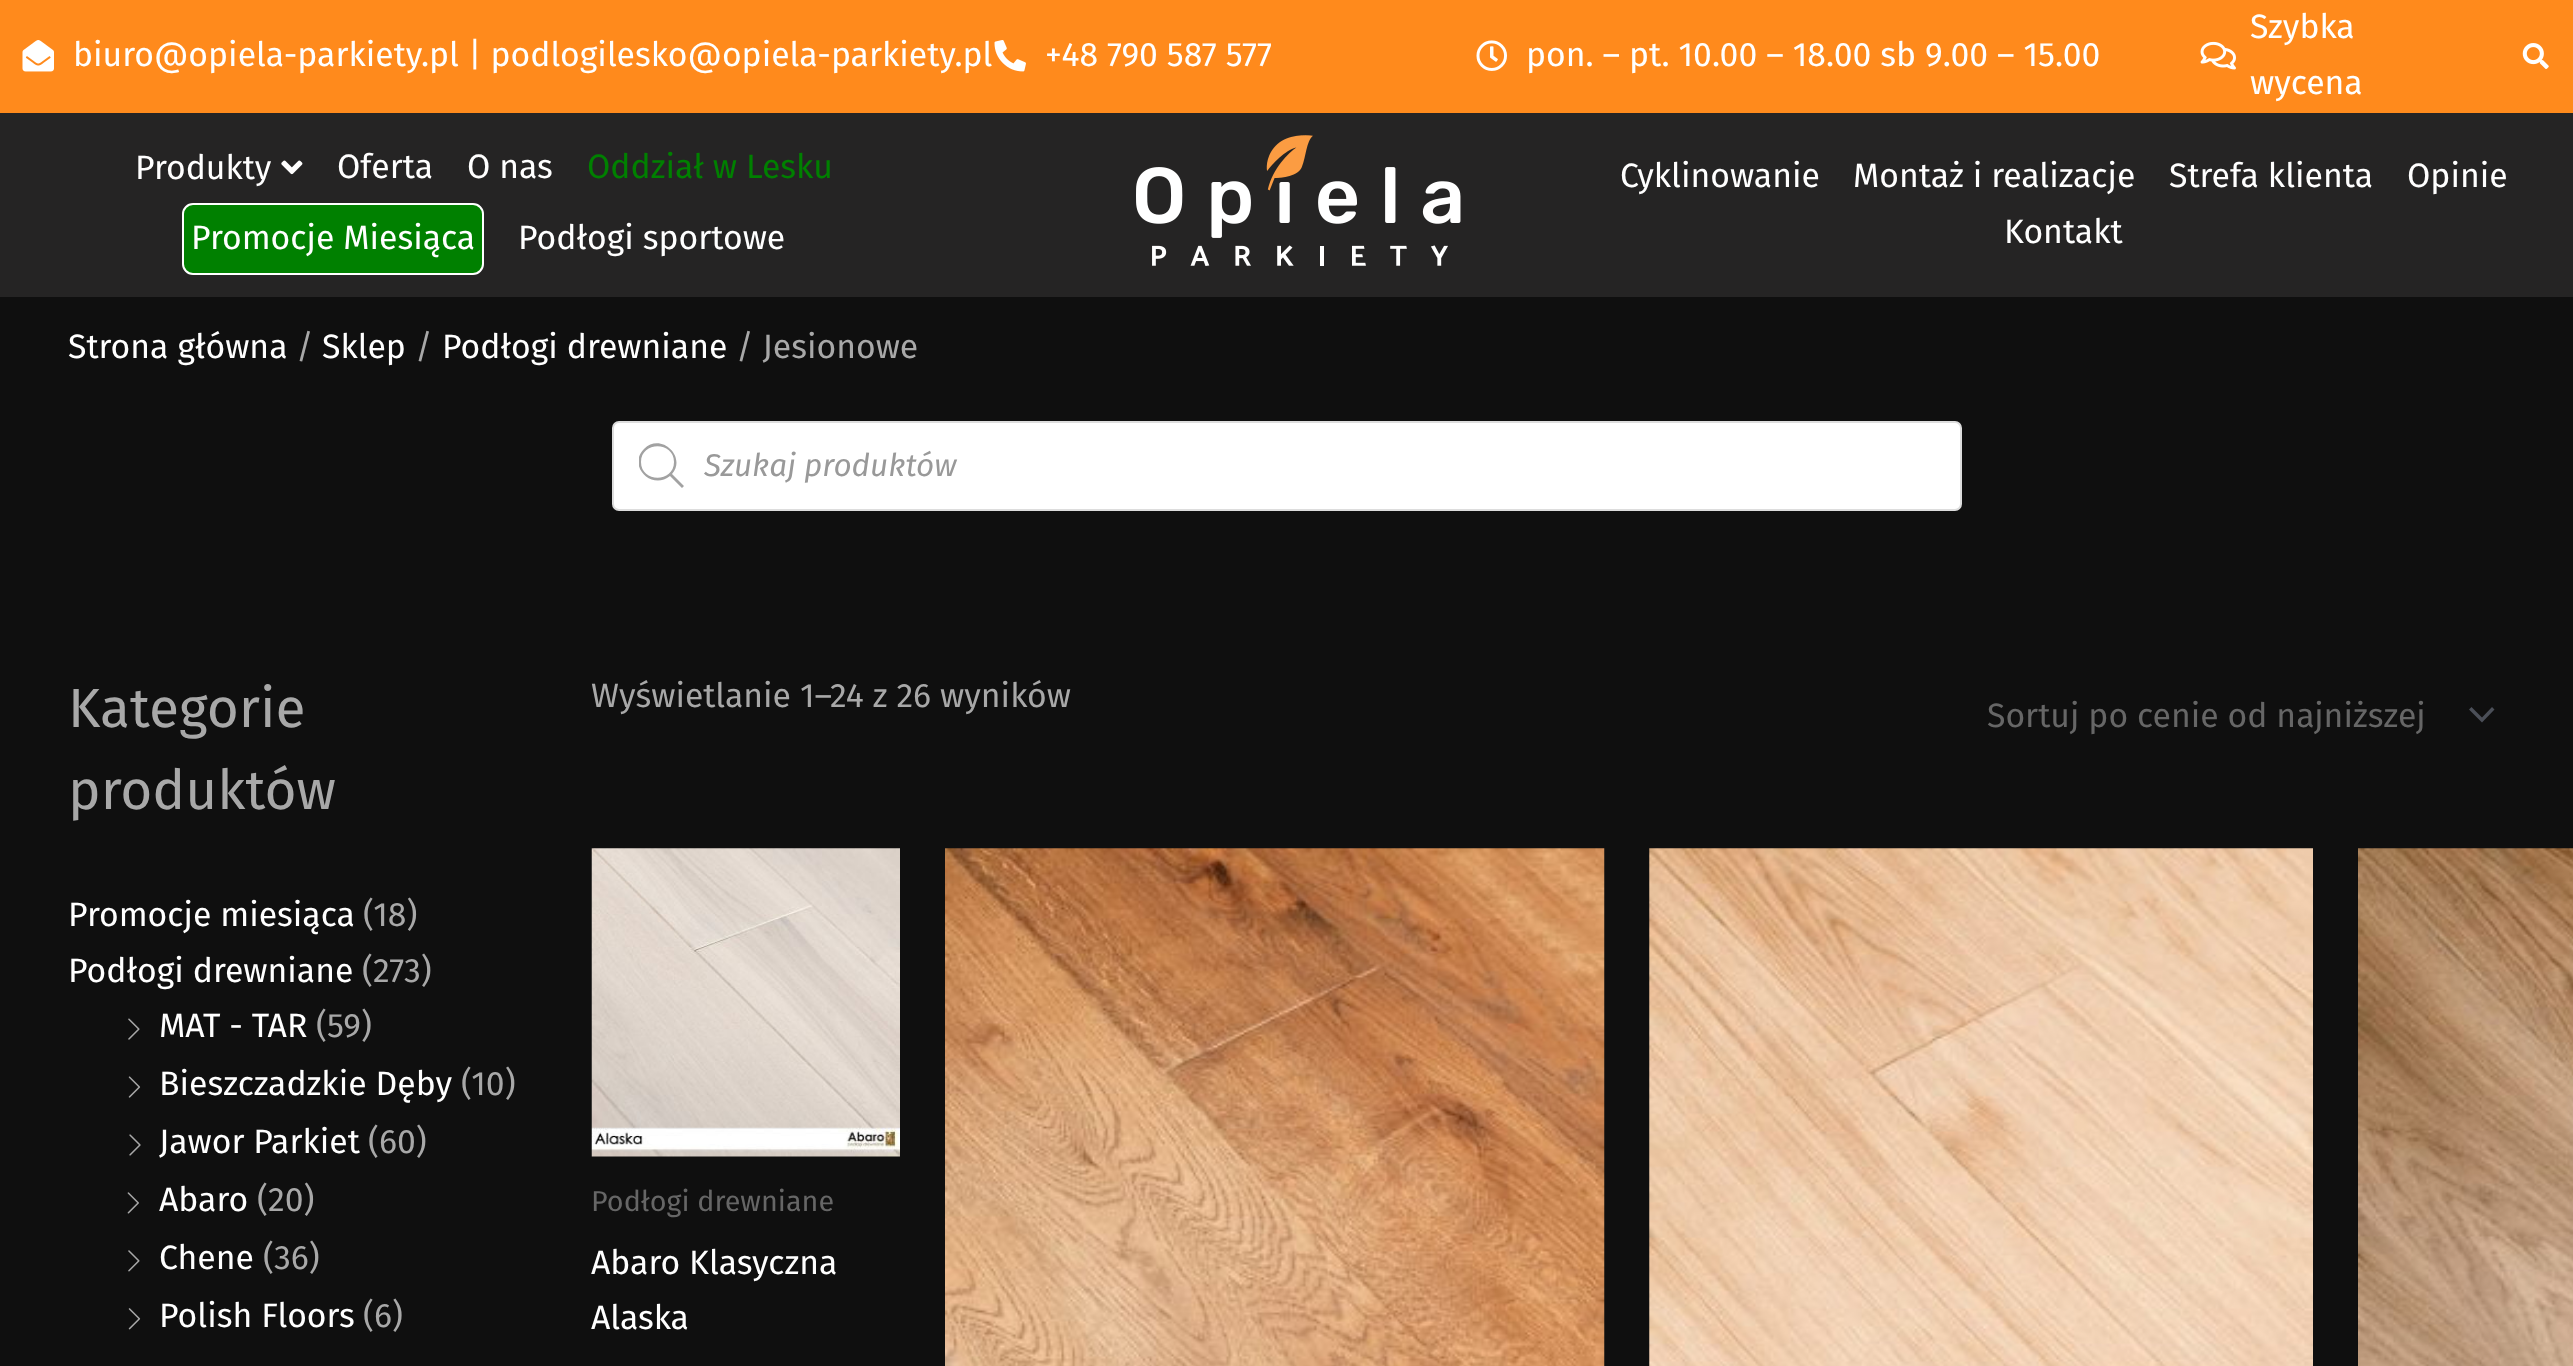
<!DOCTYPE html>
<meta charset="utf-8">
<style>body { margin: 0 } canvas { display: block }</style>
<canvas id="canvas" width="2573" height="1366"></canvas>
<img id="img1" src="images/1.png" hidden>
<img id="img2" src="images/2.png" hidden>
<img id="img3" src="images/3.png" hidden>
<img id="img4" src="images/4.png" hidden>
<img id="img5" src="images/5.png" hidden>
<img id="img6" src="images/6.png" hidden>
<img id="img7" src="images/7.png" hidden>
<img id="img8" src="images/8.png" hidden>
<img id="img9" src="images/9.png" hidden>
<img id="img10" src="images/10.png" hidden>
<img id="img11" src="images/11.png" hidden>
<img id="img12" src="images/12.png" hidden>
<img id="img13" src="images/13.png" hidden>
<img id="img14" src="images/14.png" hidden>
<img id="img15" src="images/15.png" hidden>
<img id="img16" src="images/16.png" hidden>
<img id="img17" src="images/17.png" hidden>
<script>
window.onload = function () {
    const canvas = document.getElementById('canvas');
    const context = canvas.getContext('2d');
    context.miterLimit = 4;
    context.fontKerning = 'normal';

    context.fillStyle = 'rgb(15, 15, 15)';
    context.fillRect(0, 0, 2573, 1366);
    context.fillStyle = 'rgb(255, 138, 28)';
    context.fillRect(0, 0, 2573, 113);
    context.drawImage(document.getElementById('img1'), 22, 40, 32, 32);
    context.drawImage(document.getElementById('img2'), 994, 40, 32, 32);
    context.drawImage(document.getElementById('img3'), 1476, 40, 31, 31);
    context.drawImage(document.getElementById('img4'), 2200, 41, 36, 29);
    context.drawImage(document.getElementById('img5'), 2522, 43, 27, 26);
    context.fillStyle = 'rgb(37, 36, 36)';
    context.fillRect(0, 113, 2573, 184);
    context.drawImage(document.getElementById('img6'), 281, 160, 22, 15);
    context.fillStyle = 'rgb(0, 128, 0)';
    context.beginPath();
    context.roundRect(183, 204, 300, 70, 10);
    context.fill();
    context.strokeStyle = 'rgb(255, 255, 255)';
    context.lineWidth = 2;
    context.stroke();
    context.drawImage(document.getElementById('img7'), 1136, 135, 325, 131);
    context.fillStyle = 'rgb(255, 255, 255)';
    context.beginPath();
    context.roundRect(613, 422, 1348, 88, 6);
    context.fill();
    context.strokeStyle = 'rgb(221, 221, 221)';
    context.stroke();
    context.save();
    context.beginPath();
    context.rect(639, 443, 45, 45);
    context.clip();
    context.fillStyle = 'rgb(162, 162, 162)';
    context.beginPath();
    context.moveTo(684, 486);
    context.lineTo(672, 474);
    context.bezierCurveTo(687, 457, 661, 432, 644, 449);
    context.bezierCurveTo(627, 466, 652, 491, 670, 476);
    context.lineTo(682, 488);
    context.closePath();
    context.moveTo(641, 462);
    context.bezierCurveTo(641, 441, 674, 441, 674, 462);
    context.bezierCurveTo(674, 483, 641, 483, 641, 462);
    context.closePath();
    context.fill();
    context.restore();
    context.drawImage(document.getElementById('img8'), 128, 1018, 12, 22);
    context.drawImage(document.getElementById('img9'), 128, 1076, 13, 22);
    context.drawImage(document.getElementById('img10'), 129, 1134, 12, 22);
    context.drawImage(document.getElementById('img11'), 127, 1192, 12, 22);
    context.drawImage(document.getElementById('img12'), 128, 1250, 12, 22);
    context.drawImage(document.getElementById('img13'), 128, 1308, 13, 22);
    context.fillStyle = 'rgb(75, 79, 88)';
    context.beginPath();
    context.moveTo(2469, 709.5);
    context.lineTo(2482, 722.5);
    context.lineTo(2494.5, 709.5);
    context.lineTo(2492, 707);
    context.lineTo(2482, 717.5);
    context.lineTo(2471.5, 707);
    context.closePath();
    context.fill();
    context.drawImage(document.getElementById('img14'), 591, 848, 309, 309);
    context.drawImage(document.getElementById('img15'), 945, 848, 660, 518);
    context.drawImage(document.getElementById('img16'), 1649, 848, 664, 518);
    context.drawImage(document.getElementById('img17'), 2358, 848, 215, 518);
    context.font = '33.75px Fira Sans';
    context.fillStyle = 'rgb(255, 255, 255)';
    context.fillText('biuro@opiela-parkiety.pl | podlogilesko@opiela-parkiety.pl', 73, 66);
    context.fillText('+48 790 587 577', 1045, 66);
    context.fillText('pon. – pt. 10.00 – 18.00 sb 9.00 – 15.00', 1526, 66);
    context.fillText('Szybka', 2250, 38);
    context.fillText('wycena', 2250, 94);
    context.fillText('Produkty', 135, 179);
    context.fillText('Oferta', 337, 178);
    context.fillText('O nas', 467, 178);
    context.fillStyle = 'rgb(0, 128, 0)';
    context.fillText('Oddział w Lesku', 587, 178);
    context.fillStyle = 'rgb(255, 255, 255)';
    context.fillText('Promocje Miesiąca', 191, 249);
    context.fillText('Podłogi sportowe', 518, 249);
    context.fillText('Cyklinowanie', 1620, 187);
    context.fillText('Montaż i realizacje', 1853, 187);
    context.fillText('Strefa klienta', 2169, 187);
    context.fillText('Opinie', 2407, 187);
    context.fillText('Kontakt', 2004, 243);
    context.fillText('Strona główna', 68, 358);
    context.fillStyle = 'rgb(168, 168, 168)';
    context.fillText('/', 296, 358);
    context.fillStyle = 'rgb(255, 255, 255)';
    context.fillText('Sklep', 322, 358);
    context.fillStyle = 'rgb(168, 168, 168)';
    context.fillText('/', 415, 358);
    context.fillStyle = 'rgb(255, 255, 255)';
    context.fillText('Podłogi drewniane', 442, 358);
    context.fillStyle = 'rgb(168, 168, 168)';
    context.fillText('/ Jesionowe', 736, 358);
    context.font = 'italic 31.5px Fira Sans';
    context.fillStyle = 'rgb(153, 153, 153)';
    context.fillText('Szukaj produktów', 704, 476);
    context.font = '55px Fira Sans';
    context.fillStyle = 'rgb(168, 168, 168)';
    context.fillText('Kategorie', 68, 727);
    context.fillText('produktów', 68, 809);
    context.font = '33.75px Fira Sans';
    context.fillStyle = 'rgb(255, 255, 255)';
    context.fillText('Promocje miesiąca', 68, 926);
    context.fillStyle = 'rgb(168, 168, 168)';
    context.fillText('(18)', 363, 926);
    context.fillStyle = 'rgb(255, 255, 255)';
    context.fillText('Podłogi drewniane', 68, 982);
    context.fillStyle = 'rgb(168, 168, 168)';
    context.fillText('(273)', 362, 982);
    context.fillStyle = 'rgb(255, 255, 255)';
    context.fillText('MAT - TAR', 159, 1037);
    context.fillStyle = 'rgb(168, 168, 168)';
    context.fillText('(59)', 316, 1037);
    context.fillStyle = 'rgb(255, 255, 255)';
    context.fillText('Bieszczadzkie Dęby', 159, 1095);
    context.fillStyle = 'rgb(168, 168, 168)';
    context.fillText('(10)', 461, 1095);
    context.fillStyle = 'rgb(255, 255, 255)';
    context.fillText('Jawor Parkiet', 159, 1153);
    context.fillStyle = 'rgb(168, 168, 168)';
    context.fillText('(60)', 368, 1153);
    context.fillStyle = 'rgb(255, 255, 255)';
    context.fillText('Abaro', 159, 1211);
    context.fillStyle = 'rgb(168, 168, 168)';
    context.fillText('(20)', 257, 1211);
    context.fillStyle = 'rgb(255, 255, 255)';
    context.fillText('Chene', 159, 1269);
    context.fillStyle = 'rgb(168, 168, 168)';
    context.fillText('(36)', 263, 1269);
    context.fillStyle = 'rgb(255, 255, 255)';
    context.fillText('Polish Floors', 159, 1327);
    context.fillStyle = 'rgb(168, 168, 168)';
    context.fillText('(6)', 363, 1327);
    context.fillText('Wyświetlanie 1–24 z 26 wyników', 591, 707);
    context.fillStyle = 'rgb(102, 102, 102)';
    context.fillText('Sortuj po cenie od najniższej', 1987, 727);
    context.font = '28.75px Fira Sans';
    context.fillText('Podłogi drewniane', 591, 1211);
    context.font = '33.75px Fira Sans';
    context.fillStyle = 'rgb(255, 255, 255)';
    context.fillText('Abaro Klasyczna', 591, 1274);
    context.fillText('Alaska', 591, 1329);
};
</script>
